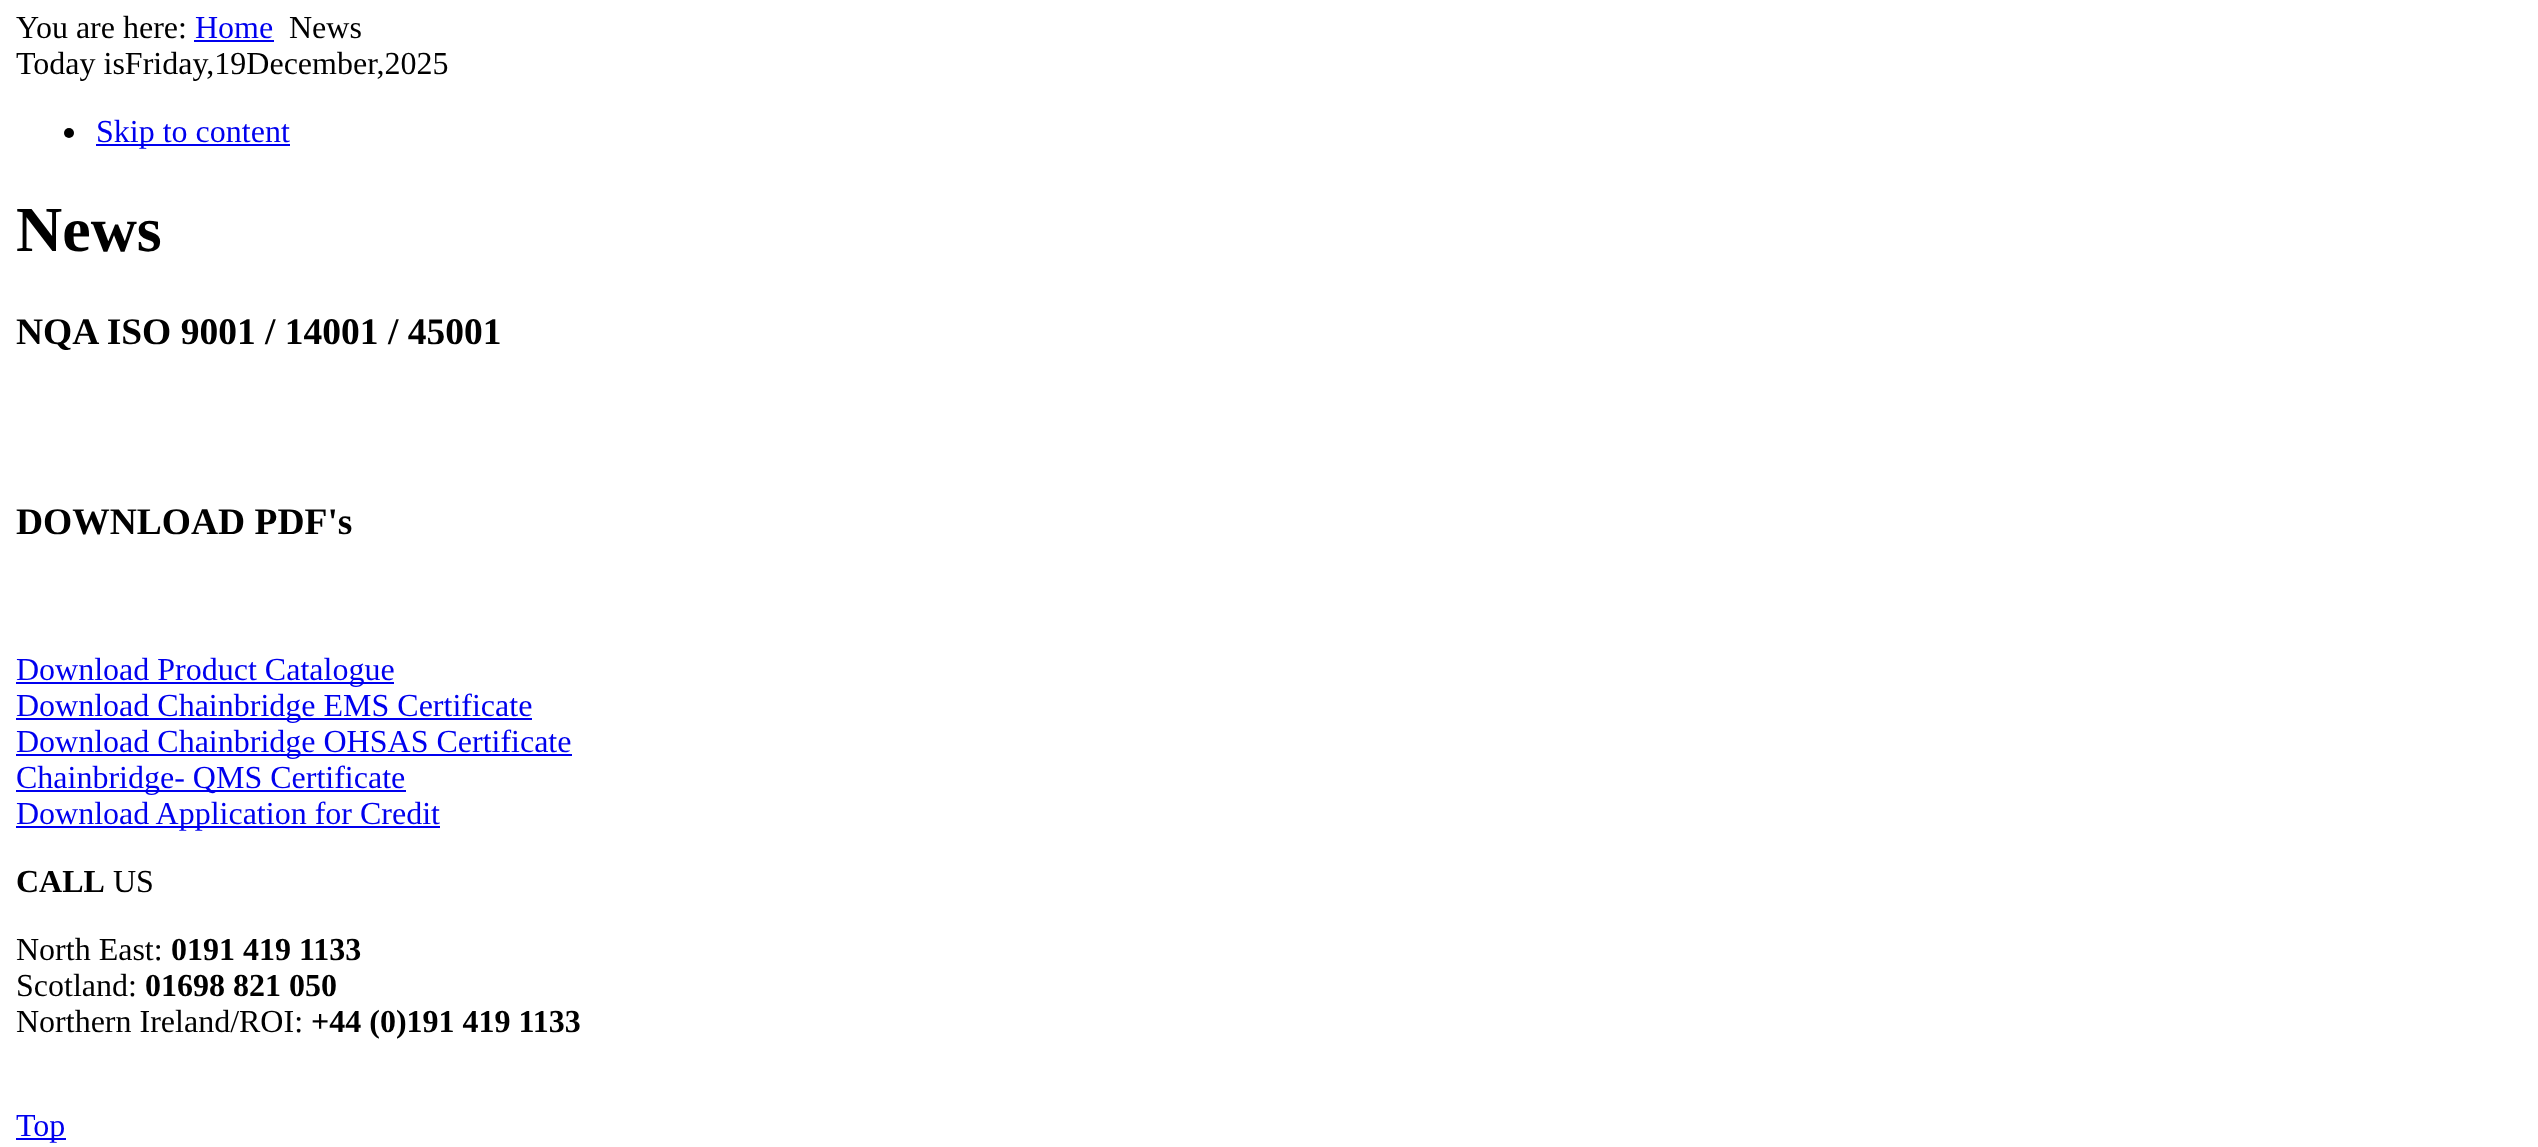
<!DOCTYPE html>
<meta charset="utf-8">
<style>body { margin: 0 } canvas { display: block }</style>
<canvas id="canvas" width="2538" height="1147"></canvas>
<script>
window.onload = function () {
    const canvas = document.getElementById('canvas');
    const context = canvas.getContext('2d');
    context.miterLimit = 4;
    context.fontKerning = 'normal';

    context.fillStyle = 'rgb(255, 255, 255)';
    context.fillRect(0, 0, 2538, 1147);
    context.fillStyle = 'rgb(0, 0, 238)';
    context.fillRect(194, 40, 80, 2);
    context.fillStyle = 'rgb(0, 0, 0)';
    context.beginPath();
    context.arc(69, 133, 5, 0, 2 * Math.PI);
    context.fill();
    context.fillStyle = 'rgb(0, 0, 238)';
    context.fillRect(96, 144, 194, 2);
    context.fillRect(16, 682, 378, 2);
    context.fillRect(16, 718, 516, 2);
    context.fillRect(16, 754, 556, 2);
    context.fillRect(16, 790, 390, 2);
    context.fillRect(16, 826, 424, 2);
    context.fillRect(16, 1138, 50, 2);
    context.font = '32px Liberation Serif';
    context.fillStyle = 'rgb(0, 0, 0)';
    context.fillText('You are here:', 16, 38);
    context.fillStyle = 'rgb(0, 0, 238)';
    context.fillText('Home', 195, 38);
    context.fillStyle = 'rgb(0, 0, 0)';
    context.fillText('News', 289, 38);
    context.fillText('Today isFriday,19December,2025', 16, 74);
    context.fillStyle = 'rgb(0, 0, 238)';
    context.fillText('Skip to content', 96, 142);
    context.font = 'bold 64px Liberation Serif';
    context.fillStyle = 'rgb(0, 0, 0)';
    context.fillText('News', 16, 251);
    context.font = 'bold 37.5px Liberation Serif';
    context.fillText('NQA ISO 9001 / 14001 / 45001', 16, 344);
    context.fillText('DOWNLOAD PDF\'s', 16, 534);
    context.font = '32px Liberation Serif';
    context.fillStyle = 'rgb(0, 0, 238)';
    context.fillText('Download Product Catalogue', 16, 680);
    context.fillText('Download Chainbridge EMS Certificate', 16, 716);
    context.fillText('Download Chainbridge OHSAS Certificate', 16, 752);
    context.fillText('Chainbridge- QMS Certificate', 16, 788);
    context.fillText('Download Application for Credit', 16, 824);
    context.font = 'bold 32px Liberation Serif';
    context.fillStyle = 'rgb(0, 0, 0)';
    context.fillText('CALL', 16, 892);
    context.font = '32px Liberation Serif';
    context.fillText('US', 113, 892);
    context.fillText('North East:', 16, 960);
    context.font = 'bold 32px Liberation Serif';
    context.fillText('0191 419 1133', 171, 960);
    context.font = '32px Liberation Serif';
    context.fillText('Scotland:', 16, 996);
    context.font = 'bold 32px Liberation Serif';
    context.fillText('01698 821 050', 145, 996);
    context.font = '32px Liberation Serif';
    context.fillText('Northern Ireland/ROI:', 16, 1032);
    context.font = 'bold 32px Liberation Serif';
    context.fillText('+44 (0)191 419 1133', 311, 1032);
    context.font = '32px Liberation Serif';
    context.fillStyle = 'rgb(0, 0, 238)';
    context.fillText('Top', 16, 1136);
};
</script>
